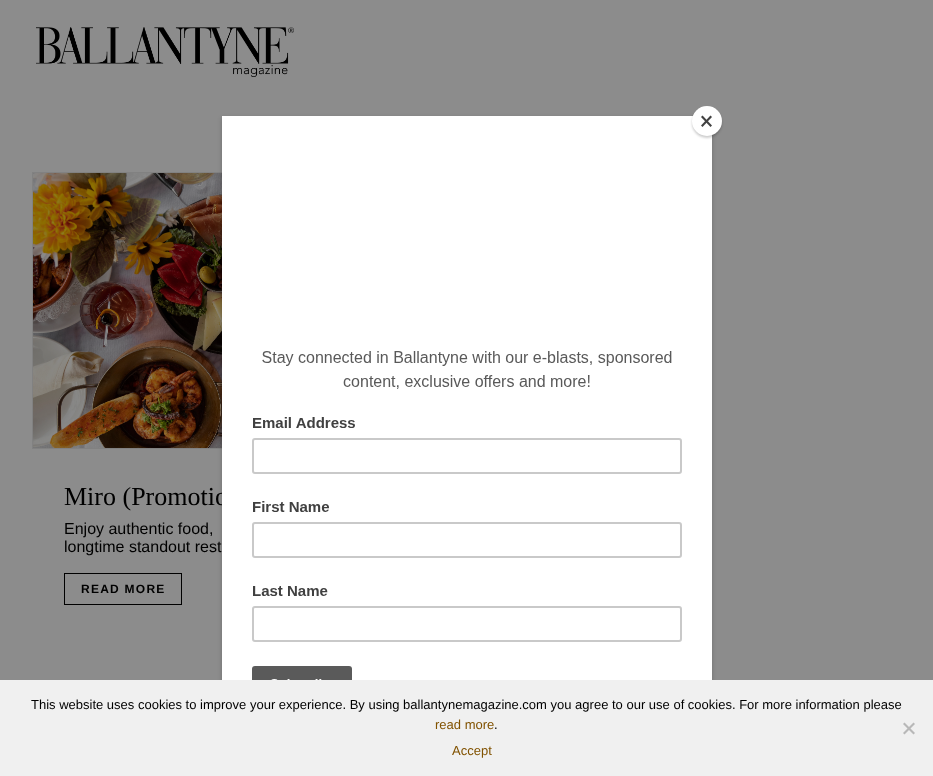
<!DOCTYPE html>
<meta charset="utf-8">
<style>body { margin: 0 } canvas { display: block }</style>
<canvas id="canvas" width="933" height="776"></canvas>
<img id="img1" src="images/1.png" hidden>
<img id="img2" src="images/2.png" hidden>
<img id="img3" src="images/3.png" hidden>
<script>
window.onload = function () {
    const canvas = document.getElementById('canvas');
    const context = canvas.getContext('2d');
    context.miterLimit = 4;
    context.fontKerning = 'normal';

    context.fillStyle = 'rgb(140, 140, 140)';
    context.fillRect(0, 0, 933, 776);
    context.drawImage(document.getElementById('img1'), 36, 27, 258, 50);
    context.strokeStyle = 'rgb(129, 129, 129)';
    context.strokeRect(32.5, 172.5, 415, 276);
    context.drawImage(document.getElementById('img2'), 33, 173, 189, 275);
    context.strokeStyle = 'rgb(0, 0, 0)';
    context.strokeRect(64.5, 573.5, 117, 31);
    context.fillStyle = 'rgba(0, 0, 0, 0.2)';
    context.filter = 'blur(2px)';
    context.beginPath();
    context.rect(222, 118, 490, 600);
    context.fill();
    context.filter = 'none';
    context.fillStyle = 'rgb(240, 240, 240)';
    context.fillRect(0, 680, 933, 96);
    context.fillStyle = 'rgb(184, 184, 184)';
    context.beginPath();
    context.moveTo(913.5, 722.5);
    context.lineTo(915, 724);
    context.lineTo(904.5, 734.5);
    context.lineTo(903, 733);
    context.closePath();
    context.fill();
    context.beginPath();
    context.moveTo(903, 724);
    context.lineTo(904.5, 722.5);
    context.lineTo(915, 733);
    context.lineTo(913.5, 734.5);
    context.closePath();
    context.fill();
    context.font = '26px Liberation Serif';
    context.fillStyle = 'rgb(0, 0, 0)';
    context.fillText('Miro (Promotio', 64, 505);
    context.font = '16px Liberation Sans';
    context.fillText('Enjoy authentic food,', 64, 534);
    context.fillText('longtime standout rest', 64, 552);
    context.letterSpacing = '1.25px';
    context.font = 'bold 12px Liberation Sans';
    context.fillText('READ MORE', 81, 593);
    context.drawImage(document.getElementById('img3'), 222, 116, 490, 564);
    context.fillStyle = 'rgba(0, 0, 0, 0.2)';
    context.filter = 'blur(1px)';
    context.beginPath();
    context.roundRect(692, 108, 30, 30, 15);
    context.fill();
    context.filter = 'none';
    context.fillStyle = 'rgb(255, 255, 255)';
    context.beginPath();
    context.arc(707, 121, 15, 0, 2 * Math.PI);
    context.fill();
    context.fillStyle = 'rgb(65, 65, 65)';
    context.beginPath();
    context.moveTo(710.5, 115.5);
    context.lineTo(712, 117);
    context.lineTo(702.5, 127);
    context.lineTo(701, 125.5);
    context.closePath();
    context.fill();
    context.beginPath();
    context.moveTo(701, 117);
    context.lineTo(702.5, 115.5);
    context.lineTo(712, 125.5);
    context.lineTo(710.5, 127);
    context.closePath();
    context.fill();
    context.letterSpacing = '0px';
    context.font = '13px Liberation Sans';
    context.fillStyle = 'rgb(0, 0, 0)';
    context.fillText('This website uses cookies to improve your experience. By using ballantynemagazine.com you agree to our use of cookies. For more information please', 31, 709);
    context.fillStyle = 'rgb(129, 82, 0)';
    context.fillText('read more', 435, 729);
    context.fillStyle = 'rgb(0, 0, 0)';
    context.fillText('.', 494, 729);
    context.fillStyle = 'rgb(129, 82, 0)';
    context.fillText('Accept', 452, 755);
};
</script>
